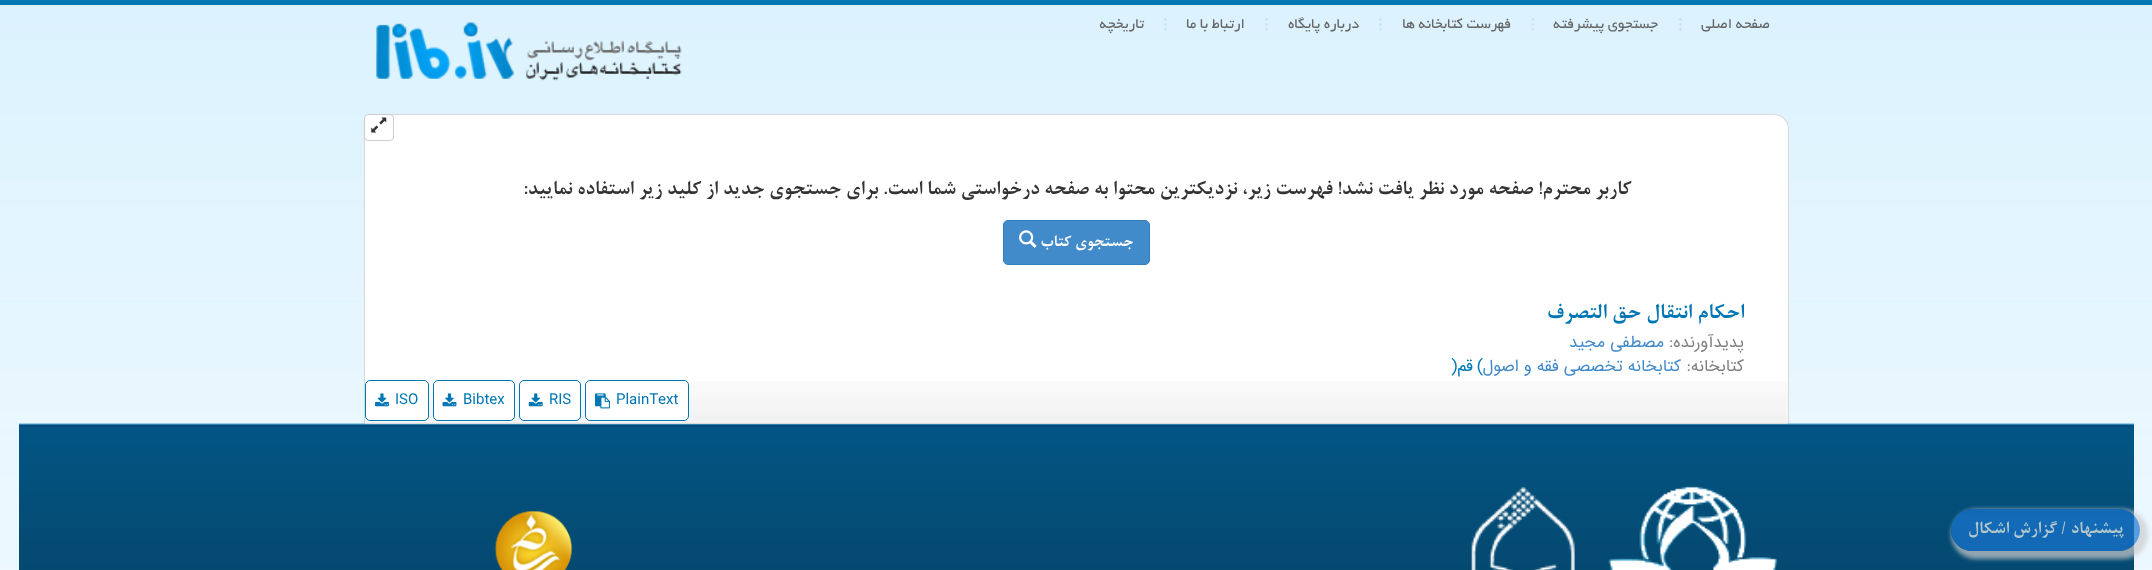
<!DOCTYPE html>
<meta charset="utf-8">
<style>body { margin: 0 } canvas { display: block }</style>
<canvas id="canvas" width="2152" height="570"></canvas>
<img id="img1" src="images/1.png" hidden>
<img id="img2" src="images/2.png" hidden>
<img id="img3" src="images/3.png" hidden>
<img id="img4" src="images/4.png" hidden>
<img id="img5" src="images/5.png" hidden>
<img id="img6" src="images/6.png" hidden>
<img id="img7" src="images/7.png" hidden>
<img id="img8" src="images/13.png" hidden>
<img id="img9" src="images/8.png" hidden>
<img id="img10" src="images/9.png" hidden>
<img id="img11" src="images/10.png" hidden>
<img id="img12" src="images/11.png" hidden>
<img id="img13" src="images/12.png" hidden>
<img id="img14" src="images/14.png" hidden>
<img id="img15" src="images/15.png" hidden>
<script>
window.onload = function () {
    const canvas = document.getElementById('canvas');
    const context = canvas.getContext('2d');
    context.miterLimit = 4;
    context.fontKerning = 'normal';

    context.fillStyle = 'rgb(255, 255, 255)';
    context.fillRect(0, 0, 2152, 570);
    context.drawImage(document.getElementById('img1'), 0, 5, 2152, 565);
    context.fillStyle = 'rgb(3, 120, 180)';
    context.fillRect(0, 0, 2152, 5);
    context.drawImage(document.getElementById('img2'), 1678, 18, 4, 13);
    context.drawImage(document.getElementById('img3'), 1531, 18, 4, 13);
    context.drawImage(document.getElementById('img2'), 1378, 18, 4, 13);
    context.drawImage(document.getElementById('img4'), 1265, 18, 3, 13);
    context.drawImage(document.getElementById('img2'), 1163, 18, 4, 13);
    context.drawImage(document.getElementById('img5'), 376, 22, 306, 59);
    context.fillStyle = 'rgb(255, 255, 255)';
    context.beginPath();
    context.roundRect(364, 114, 1425, 62, [15, 15, 0, 0]);
    context.fill();
    context.fillStyle = 'rgb(215, 216, 217)';
    context.beginPath();
    context.moveTo(379, 114);
    context.lineTo(1774, 114);
    context.bezierCurveTo(1782, 114, 1789, 120, 1789, 129);
    context.lineTo(1789, 176);
    context.lineTo(364, 176);
    context.lineTo(364, 129);
    context.bezierCurveTo(364, 120, 370, 114, 379, 114);
    context.closePath();
    context.moveTo(379, 115);
    context.lineTo(1774, 115);
    context.bezierCurveTo(1781, 115, 1788, 121, 1788, 129);
    context.lineTo(1788, 176);
    context.lineTo(365, 176);
    context.lineTo(365, 129);
    context.bezierCurveTo(365, 121, 371, 115, 379, 115);
    context.closePath();
    context.fill('evenodd');
    context.fillStyle = 'rgb(255, 255, 255)';
    context.beginPath();
    context.roundRect(364.5, 114.5, 29, 26, 3.5);
    context.fill();
    context.strokeStyle = 'rgb(204, 204, 204)';
    context.stroke();
    context.drawImage(document.getElementById('img6'), 371, 117, 16, 16);
    context.fillRect(365, 176, 1423, 248);
    context.fillStyle = 'rgb(215, 216, 217)';
    context.fillRect(1788, 176, 1, 248);
    context.fillRect(364, 176, 1, 248);
    context.fillStyle = 'rgb(66, 139, 202)';
    context.beginPath();
    context.roundRect(1003.5, 220.5, 146, 44, 4.5);
    context.fill();
    context.strokeStyle = 'rgb(53, 126, 189)';
    context.stroke();
    context.drawImage(document.getElementById('img7'), 1019, 230, 18, 18);
    context.drawImage(document.getElementById('img8'), 19, 423, 2115, 147);
    context.drawImage(document.getElementById('img9'), 365, 381, 1423, 43);
    context.fillStyle = 'rgb(255, 255, 255)';
    context.beginPath();
    context.roundRect(585.5, 380.5, 103, 40, 4.5);
    context.fill();
    context.strokeStyle = 'rgb(0, 119, 180)';
    context.stroke();
    context.drawImage(document.getElementById('img10'), 595, 393, 15, 16);
    context.beginPath();
    context.roundRect(519.5, 380.5, 61, 40, 4.5);
    context.fill();
    context.stroke();
    context.drawImage(document.getElementById('img11'), 528, 393, 15, 14);
    context.beginPath();
    context.roundRect(433.5, 380.5, 81, 40, 4.5);
    context.fill();
    context.stroke();
    context.drawImage(document.getElementById('img12'), 442, 393, 15, 14);
    context.beginPath();
    context.roundRect(365.5, 380.5, 63, 40, 4.5);
    context.fill();
    context.stroke();
    context.drawImage(document.getElementById('img13'), 375, 393, 14, 14);
    context.save();
    context.beginPath();
    context.moveTo(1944, 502);
    context.lineTo(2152, 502);
    context.lineTo(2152, 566);
    context.lineTo(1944, 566);
    context.closePath();
    context.moveTo(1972, 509);
    context.lineTo(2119, 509);
    context.bezierCurveTo(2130.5, 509, 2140, 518.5, 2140, 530);
    context.bezierCurveTo(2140, 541.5, 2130.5, 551, 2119, 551);
    context.lineTo(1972, 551);
    context.bezierCurveTo(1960.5, 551, 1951, 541.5, 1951, 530);
    context.bezierCurveTo(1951, 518.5, 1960.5, 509, 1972, 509);
    context.closePath();
    context.clip('evenodd');
    context.fillStyle = 'rgba(204, 204, 204, 0.7)';
    context.filter = 'blur(2px)';
    context.beginPath();
    context.roundRect(1951, 509, 197, 50, 25);
    context.fill();
    context.filter = 'none';
    context.restore();
    context.fillStyle = 'rgba(25, 118, 210, 0.7)';
    context.beginPath();
    context.roundRect(1951, 509, 189, 42, 21);
    context.fill();
    context.drawImage(document.getElementById('img14'), 1471, 486, 307, 84);
    context.drawImage(document.getElementById('img15'), 494, 511, 78, 59);
    context.direction = 'rtl';
    context.font = '15.75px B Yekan';
    context.fillStyle = 'rgb(102, 102, 102)';
    context.fillText('صفحه اصلی', 1770, 28);
    context.fillText('جستجوی پیشرفته', 1658, 28);
    context.fillText('فهرست کتابخانه ها', 1511, 28);
    context.fillText('درباره پایگاه', 1359, 28);
    context.fillText('ارتباط با ما', 1245, 28);
    context.fillText('تاریخچه', 1144, 28);
    context.font = 'bold 21.67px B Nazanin';
    context.fillStyle = 'rgb(51, 51, 51)';
    context.fillText('کاربر محترم! صفحه مورد نظر یافت نشد! فهرست زیر، نزدیکترین محتوا به صفحه درخواستی شما است. برای جستجوی جدید از کلید زیر استفاده نمایید:', 1631, 194);
    context.font = 'bold 17.5px B Nazanin';
    context.fillStyle = 'rgb(255, 255, 255)';
    context.fillText('جستجوی کتاب', 1133, 246);
    context.font = 'bold 23.25px B Nazanin';
    context.fillStyle = 'rgb(0, 119, 180)';
    context.fillText('احکا‌م‌ انتقا‌ل‌ حق‌ التصرف‌', 1744, 318);
    context.font = '16.75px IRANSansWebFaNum';
    context.fillStyle = 'rgb(128, 128, 128)';
    context.fillText('پدیدآورنده:', 1744, 347);
    context.fillStyle = 'rgb(66, 139, 202)';
    context.fillText('مصطفی‌ مجید', 1664, 347);
    context.fillStyle = 'rgb(128, 128, 128)';
    context.fillText('کتابخانه:', 1744, 371);
    context.fillStyle = 'rgb(66, 139, 202)';
    context.fillText('کتابخانه تخصصی فقه و اصول', 1681, 371);
    context.direction = 'ltr';
    context.fillStyle = 'rgb(0, 119, 180)';
    context.fillText('(', 1477, 371);
    context.direction = 'rtl';
    context.fillText('قم', 1473, 371);
    context.direction = 'ltr';
    context.fillText(')', 1451, 371);
    context.font = '15px IRANSansWebFaNum';
    context.fillText('PlainText', 616, 404);
    context.fillText('RIS', 549, 404);
    context.fillText('Bibtex', 463, 404);
    context.fillText('ISO', 395, 404);
    context.direction = 'rtl';
    context.font = 'bold 18.75px B Nazanin';
    context.fillStyle = 'rgb(180, 201, 202)';
    context.fillText('پیشنهاد / گزارش اشکال', 2124, 533);
};
</script>
